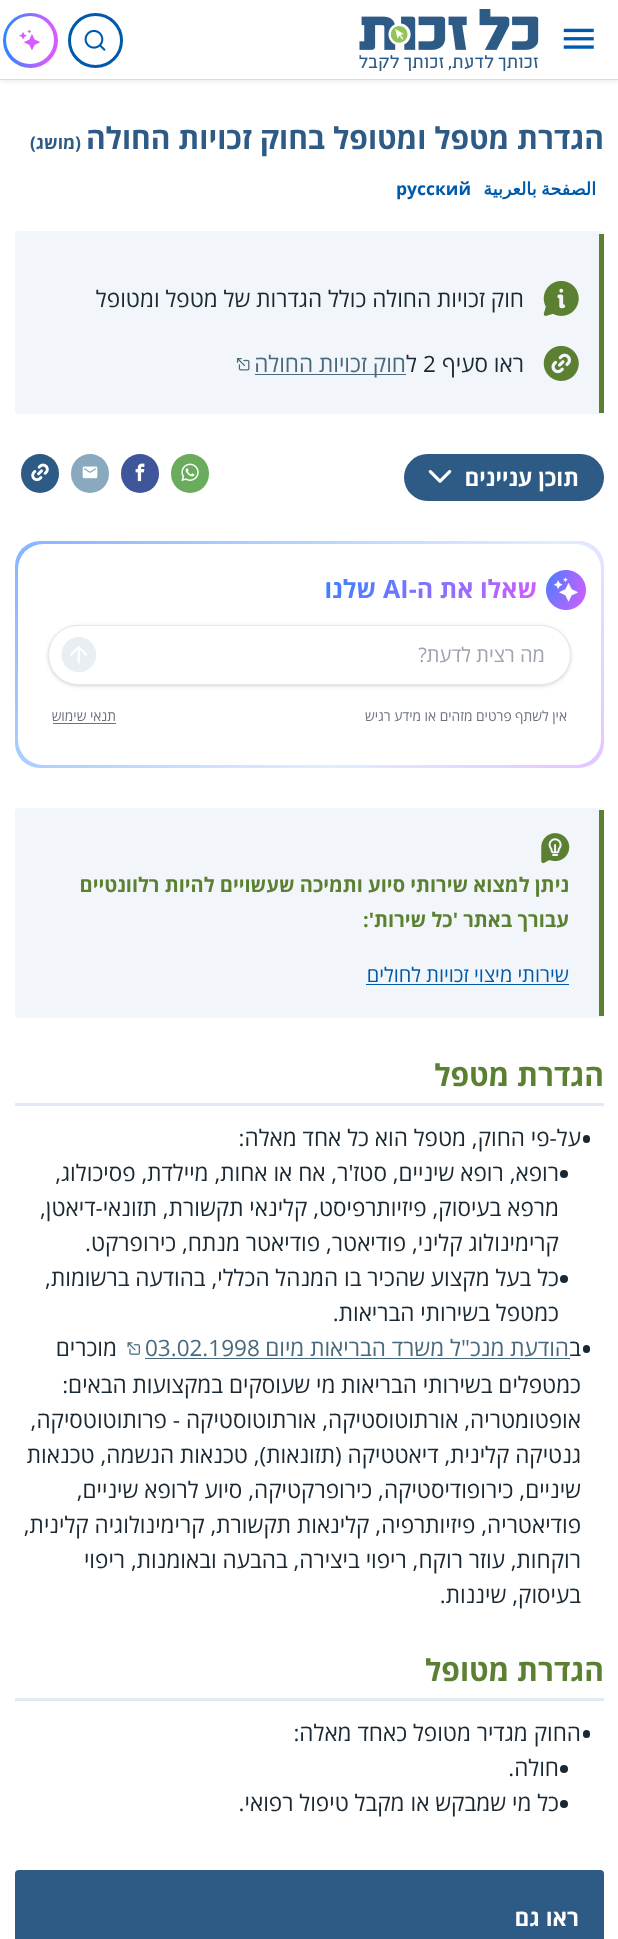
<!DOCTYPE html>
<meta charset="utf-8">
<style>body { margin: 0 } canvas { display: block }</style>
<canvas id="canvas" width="618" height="1939"></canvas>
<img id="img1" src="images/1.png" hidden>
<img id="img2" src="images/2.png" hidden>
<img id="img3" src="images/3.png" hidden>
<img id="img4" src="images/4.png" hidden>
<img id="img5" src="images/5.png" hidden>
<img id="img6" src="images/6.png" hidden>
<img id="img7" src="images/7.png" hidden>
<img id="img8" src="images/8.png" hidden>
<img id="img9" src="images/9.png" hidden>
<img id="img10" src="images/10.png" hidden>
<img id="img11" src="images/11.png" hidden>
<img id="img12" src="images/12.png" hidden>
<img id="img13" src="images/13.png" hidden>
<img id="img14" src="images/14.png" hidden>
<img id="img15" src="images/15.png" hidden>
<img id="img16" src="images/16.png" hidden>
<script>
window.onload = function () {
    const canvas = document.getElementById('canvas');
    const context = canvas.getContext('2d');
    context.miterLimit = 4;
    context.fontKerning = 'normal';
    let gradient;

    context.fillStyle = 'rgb(255, 255, 255)';
    context.fillRect(0, 0, 618, 1939);
    context.save();
    context.beginPath();
    context.rect(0, 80, 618, 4);
    context.clip();
    context.fillStyle = 'rgba(0, 0, 0, 0.05)';
    context.filter = 'blur(2.5px)';
    context.beginPath();
    context.rect(0, 3, 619, 80);
    context.fill();
    context.filter = 'none';
    context.restore();
    context.fillStyle = 'rgb(214, 219, 223)';
    context.fillRect(0, 79, 618, 1);
    context.drawImage(document.getElementById('img1'), 563, 28, 31, 21);
    context.drawImage(document.getElementById('img2'), 359, 9, 180, 62);
    context.beginPath();
    context.arc(95.5, 40.5, 26, 0, 2 * Math.PI);
    context.strokeStyle = 'rgb(0, 90, 171)';
    context.lineWidth = 3;
    context.stroke();
    context.drawImage(document.getElementById('img3'), 84, 29, 22, 22);
    gradient = context.createLinearGradient(0.7, 38, 59, 42);
    gradient.addColorStop(0.12, 'rgb(50, 132, 255)');
    gradient.addColorStop(0.83, 'rgb(214, 92, 255)');
    context.fillStyle = gradient;
    context.beginPath();
    context.arc(30.5, 40.5, 27.5, 0, 2 * Math.PI);
    context.fill();
    context.fillStyle = 'rgb(255, 255, 255)';
    context.beginPath();
    context.arc(30, 40, 24, 0, 2 * Math.PI);
    context.fill();
    context.drawImage(document.getElementById('img4'), 19, 29, 21, 22);
    context.fillStyle = 'rgb(242, 246, 250)';
    context.beginPath();
    context.roundRect(15, 231, 589, 183, 4);
    context.fill();
    context.fillStyle = 'rgb(91, 128, 49)';
    context.fillRect(599, 234, 5, 179);
    context.drawImage(document.getElementById('img5'), 543, 280, 36, 36);
    context.drawImage(document.getElementById('img6'), 543, 345, 36, 36);
    context.fillStyle = 'rgb(73, 105, 125)';
    context.fillRect(255, 374, 151, 1);
    context.drawImage(document.getElementById('img7'), 236, 358, 14, 13);
    context.fillStyle = 'rgb(45, 91, 133)';
    context.beginPath();
    context.roundRect(404, 454, 200, 47, 23.5);
    context.fill();
    context.drawImage(document.getElementById('img8'), 428, 470, 24, 13);
    context.fillStyle = 'rgb(105, 172, 91)';
    context.beginPath();
    context.roundRect(171, 454, 38, 39, 19);
    context.fill();
    context.drawImage(document.getElementById('img9'), 181, 463, 18, 18);
    context.fillStyle = 'rgb(64, 86, 154)';
    context.beginPath();
    context.roundRect(121, 454, 38, 39, 19);
    context.fill();
    context.drawImage(document.getElementById('img10'), 135, 463, 10, 19);
    context.fillStyle = 'rgb(136, 169, 190)';
    context.beginPath();
    context.roundRect(71, 454, 38, 39, 19);
    context.fill();
    context.drawImage(document.getElementById('img11'), 82, 466, 16, 13);
    context.fillStyle = 'rgb(45, 91, 133)';
    context.beginPath();
    context.roundRect(21, 454, 38, 39, 19);
    context.fill();
    context.drawImage(document.getElementById('img12'), 31, 463, 18, 19);
    gradient = context.createLinearGradient(196, 360, 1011, 1175);
    gradient.addColorStop(0, 'rgb(132, 181, 255)');
    gradient.addColorStop(0.33, 'rgb(224, 237, 255)');
    gradient.addColorStop(0.67, 'rgb(231, 157, 255)');
    gradient.addColorStop(1, 'rgb(247, 223, 255)');
    context.fillStyle = gradient;
    context.beginPath();
    context.roundRect(15, 541, 589, 227, 25);
    context.fill();
    context.fillStyle = 'rgb(255, 255, 255)';
    context.beginPath();
    context.roundRect(18, 544, 583, 221, 25);
    context.fill();
    context.drawImage(document.getElementById('img13'), 546, 570, 40, 40);
    context.fillStyle = 'rgba(0, 0, 0, 0.06)';
    context.filter = 'blur(1px)';
    context.beginPath();
    context.roundRect(48, 626, 523, 60, 30);
    context.fill();
    context.filter = 'none';
    context.fillStyle = 'rgba(0, 0, 0, 0.1)';
    context.filter = 'blur(2px)';
    context.beginPath();
    context.roundRect(48, 626, 523, 60, 30);
    context.fill();
    context.filter = 'none';
    context.fillStyle = 'rgb(255, 255, 255)';
    context.beginPath();
    context.roundRect(48.5, 625.5, 522, 59, 29.5);
    context.fill();
    context.strokeStyle = 'rgb(229, 231, 235)';
    context.lineWidth = 1;
    context.stroke();
    context.drawImage(document.getElementById('img14'), 61, 637, 35, 35);
    context.fillStyle = 'rgb(107, 114, 128)';
    context.fillRect(53, 723, 63, 1);
    context.fillStyle = 'rgb(242, 246, 250)';
    context.beginPath();
    context.roundRect(15, 808, 589, 210, 4);
    context.fill();
    context.fillStyle = 'rgb(91, 128, 49)';
    context.fillRect(599, 810, 5, 206);
    context.drawImage(document.getElementById('img15'), 541, 833, 29, 31);
    context.fillStyle = 'rgb(0, 90, 171)';
    context.fillRect(366, 984, 203, 1);
    context.fillStyle = 'rgb(226, 234, 243)';
    context.fillRect(15, 1103, 589, 3);
    context.fillStyle = 'rgb(25, 40, 50)';
    context.beginPath();
    context.roundRect(583, 1135, 7, 8, 3.5);
    context.fill();
    context.beginPath();
    context.arc(564, 1174, 4, 0, 2 * Math.PI);
    context.fill();
    context.beginPath();
    context.arc(564, 1279, 4, 0, 2 * Math.PI);
    context.fill();
    context.beginPath();
    context.roundRect(583, 1345, 7, 8, 3.5);
    context.fill();
    context.fillStyle = 'rgb(73, 105, 125)';
    context.fillRect(145, 1358, 425, 1);
    context.drawImage(document.getElementById('img16'), 127, 1342, 13, 13);
    context.fillStyle = 'rgb(226, 234, 243)';
    context.fillRect(15, 1698, 589, 3);
    context.fillStyle = 'rgb(25, 40, 50)';
    context.beginPath();
    context.roundRect(583, 1730, 7, 8, 3.5);
    context.fill();
    context.beginPath();
    context.arc(564, 1769, 4, 0, 2 * Math.PI);
    context.fill();
    context.beginPath();
    context.arc(564, 1804, 4, 0, 2 * Math.PI);
    context.fill();
    context.fillStyle = 'rgb(45, 91, 133)';
    context.beginPath();
    context.roundRect(15, 1870, 589, 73, 4);
    context.fill();
    context.direction = 'rtl';
    context.font = 'bold 30px Open Sans';
    context.fillText('הגדרת מטפל ומטופל בחוק זכויות החולה', 604, 149);
    context.font = 'bold 17.5px Open Sans';
    context.fillText('(מושג)', 81, 149);
    context.wordSpacing = '-1px';
    context.font = 'bold 17.5px DejaVu Sans';
    context.fillStyle = 'rgb(0, 90, 171)';
    context.fillText('الصفحة بالعربية', 596, 195);
    context.wordSpacing = '0px';
    context.direction = 'ltr';
    context.font = 'bold 17.5px Open Sans';
    context.fillText('русский', 396, 195);
    context.direction = 'rtl';
    context.font = '22.5px Open Sans';
    context.fillStyle = 'rgb(25, 40, 50)';
    context.fillText('חוק זכויות החולה כולל הגדרות של מטפל ומטופל', 524, 307);
    context.fillText('ראו סעיף', 524, 372);
    context.direction = 'ltr';
    context.fillText('2', 423, 372);
    context.direction = 'rtl';
    context.fillText('ל', 417, 372);
    context.fillStyle = 'rgb(73, 105, 125)';
    context.fillText('חוק זכויות החולה', 406, 372);
    context.font = 'bold 22.5px Open Sans';
    context.fillStyle = 'rgb(255, 255, 255)';
    context.fillText('תוכן עניינים', 579, 486);
    context.font = 'bold 25px Open Sans';
    gradient = context.createLinearGradient(369, 528, 492, 651);
    gradient.addColorStop(0, 'rgb(50, 132, 255)');
    gradient.addColorStop(1, 'rgb(214, 92, 255)');
    context.fillStyle = gradient;
    context.fillText('שאלו את ה-', 537, 598);
    context.direction = 'ltr';
    context.fillText('AI', 383, 598);
    context.direction = 'rtl';
    context.fillText('שלנו', 376, 598);
    context.font = '20px Open Sans';
    context.fillStyle = 'rgb(156, 163, 175)';
    context.fillText('מה רצית לדעת?', 545, 662);
    context.font = '13.75px Open Sans';
    context.fillStyle = 'rgb(107, 114, 128)';
    context.fillText('אין לשתף פרטים מזהים או מידע רגיש', 567, 721);
    context.fillText('תנאי שימוש', 116, 721);
    context.font = 'bold 20px Open Sans';
    context.fillStyle = 'rgb(91, 128, 49)';
    context.fillText('ניתן למצוא שירותי סיוע ותמיכה שעשויים להיות רלוונטיים', 569, 892);
    context.fillText('עבורך באתר \'כל שירות\':', 569, 927);
    context.font = '20px Open Sans';
    context.fillStyle = 'rgb(0, 90, 171)';
    context.fillText('שירותי מיצוי זכויות לחולים', 569, 982);
    context.font = 'bold 30px Open Sans';
    context.fillStyle = 'rgb(91, 128, 49)';
    context.fillText('הגדרת מטפל', 604, 1086);
    context.font = '22.5px Open Sans';
    context.fillStyle = 'rgb(25, 40, 50)';
    context.fillText('על-פי החוק, מטפל הוא כל אחד מאלה:', 581, 1146);
    context.fillText('רופא, רופא שיניים, סטז\'ר, אח או אחות, מיילדת, פסיכולוג,', 559, 1181);
    context.fillText('מרפא בעיסוק, פיזיותרפיסט, קלינאי תקשורת, תזונאי-דיאטן,', 559, 1216);
    context.fillText('קרימינולוג קליני, פודיאטר, פודיאטר מנתח, כירופרקט.', 559, 1251);
    context.fillText('כל בעל מקצוע שהכיר בו המנהל הכללי, בהודעה ברשומות,', 559, 1286);
    context.fillText('כמטפל בשירותי הבריאות.', 559, 1321);
    context.fillText('ב', 581, 1356);
    context.fillStyle = 'rgb(73, 105, 125)';
    context.fillText('הודעת מנכ"ל משרד הבריאות מיום', 569, 1356);
    context.direction = 'ltr';
    context.fillText('03.02.1998', 145, 1356);
    context.direction = 'rtl';
    context.fillStyle = 'rgb(25, 40, 50)';
    context.fillText('מוכרים', 117, 1356);
    context.fillText('כמטפלים בשירותי הבריאות מי שעוסקים במקצועות הבאים:', 581, 1393);
    context.fillText('אופטומטריה, אורתוטוסטיקה, אורתוטוסטיקה - פרותוטוטסיקה,', 581, 1428);
    context.fillText('גנטיקה קלינית, דיאטטיקה (תזונאות), טכנאות הנשמה, טכנאות', 581, 1463);
    context.fillText('שיניים, כירופודיסטיקה, כירופרקטיקה, סיוע לרופא שיניים,', 581, 1498);
    context.fillText('פודיאטריה, פיזיותרפיה, קלינאות תקשורת, קרימינולוגיה קלינית,', 581, 1533);
    context.fillText('רוקחות, עוזר רוקח, ריפוי ביצירה, בהבעה ובאומנות, ריפוי', 581, 1568);
    context.fillText('בעיסוק, שיננות.', 581, 1603);
    context.font = 'bold 30px Open Sans';
    context.fillStyle = 'rgb(91, 128, 49)';
    context.fillText('הגדרת מטופל', 604, 1681);
    context.font = '22.5px Open Sans';
    context.fillStyle = 'rgb(25, 40, 50)';
    context.fillText('החוק מגדיר מטופל כאחד מאלה:', 581, 1741);
    context.fillText('חולה.', 559, 1776);
    context.fillText('כל מי שמבקש או מקבל טיפול רפואי.', 559, 1811);
    context.font = 'bold 22.5px Open Sans';
    context.fillStyle = 'rgb(255, 255, 255)';
    context.fillText('ראו גם', 579, 1926);
};
</script>
